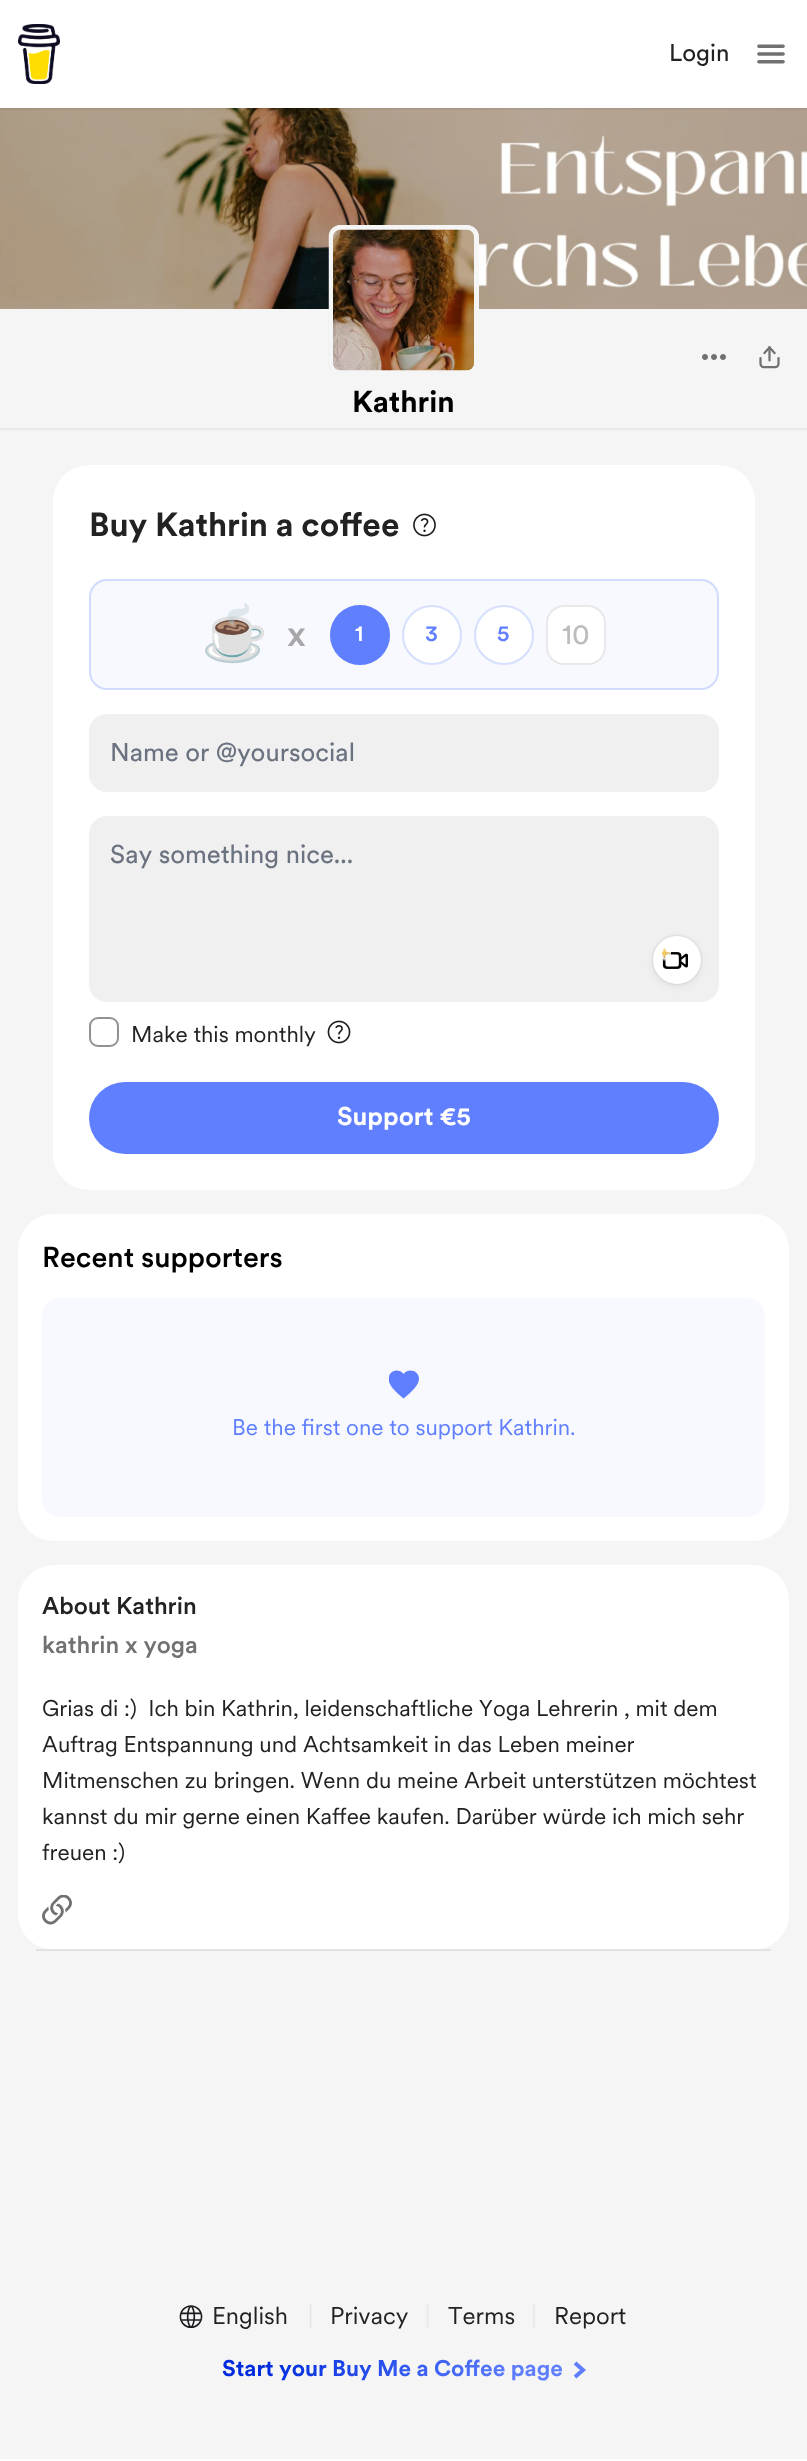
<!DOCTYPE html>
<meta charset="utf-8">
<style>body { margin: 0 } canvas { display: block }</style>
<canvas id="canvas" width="807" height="2461"></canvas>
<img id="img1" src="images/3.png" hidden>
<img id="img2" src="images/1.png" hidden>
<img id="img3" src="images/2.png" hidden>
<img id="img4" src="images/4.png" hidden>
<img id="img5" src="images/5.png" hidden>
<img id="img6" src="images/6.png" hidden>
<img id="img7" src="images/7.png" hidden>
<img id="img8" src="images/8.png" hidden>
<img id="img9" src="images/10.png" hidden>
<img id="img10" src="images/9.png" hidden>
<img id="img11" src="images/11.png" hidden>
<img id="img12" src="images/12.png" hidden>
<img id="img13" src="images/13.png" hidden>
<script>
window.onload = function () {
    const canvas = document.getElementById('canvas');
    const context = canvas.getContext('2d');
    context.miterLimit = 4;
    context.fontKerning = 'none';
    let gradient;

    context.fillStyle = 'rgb(255, 255, 255)';
    context.fillRect(0, 0, 807, 2461);
    context.drawImage(document.getElementById('img1'), 0, 108, 807, 201);
    context.save();
    context.beginPath();
    context.rect(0, 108, 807, 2);
    context.clip();
    context.fillStyle = 'rgba(0, 0, 0, 0.06)';
    context.filter = 'blur(1px)';
    context.beginPath();
    context.rect(0, 2, 807, 108);
    context.fill();
    context.filter = 'none';
    context.restore();
    context.drawImage(document.getElementById('img2'), 18, 24, 42, 60);
    context.drawImage(document.getElementById('img3'), 757, 44, 28, 20);
    context.fillStyle = 'rgb(245, 245, 245)';
    context.fillRect(0, 309, 807, 2150);
    context.drawImage(document.getElementById('img4'), 702, 354, 24, 6);
    context.drawImage(document.getElementById('img5'), 759, 346, 21, 23);
    context.drawImage(document.getElementById('img6'), 328, 225, 151, 150);
    context.beginPath();
    context.roundRect(331.5, 227.5, 145, 145, 9.5);
    context.strokeStyle = 'rgb(245, 245, 245)';
    context.lineWidth = 5;
    context.stroke();
    context.drawImage(document.getElementById('img7'), 333, 229, 141, 142);
    context.fillStyle = 'rgb(233, 233, 233)';
    context.fillRect(0, 428, 807, 2);
    context.fillStyle = 'rgb(255, 255, 255)';
    context.beginPath();
    context.roundRect(53, 465, 702, 725, 36);
    context.fill();
    context.drawImage(document.getElementById('img8'), 413, 513, 23, 24);
    context.fillStyle = 'rgb(247, 249, 255)';
    context.beginPath();
    context.roundRect(89, 579, 630, 111, 18);
    context.fill();
    context.beginPath();
    context.roundRect(90, 580, 628, 109, 17);
    context.strokeStyle = 'rgba(95, 127, 255, 0.25)';
    context.lineWidth = 2;
    context.stroke();
    context.fillStyle = 'rgb(95, 127, 255)';
    context.beginPath();
    context.arc(360, 635, 30, 0, 2 * Math.PI);
    context.fill();
    context.beginPath();
    context.arc(360, 635, 29, 0, 2 * Math.PI);
    context.stroke();
    context.fillStyle = 'rgb(255, 255, 255)';
    context.beginPath();
    context.arc(432, 635, 30, 0, 2 * Math.PI);
    context.fill();
    context.beginPath();
    context.arc(432, 635, 29, 0, 2 * Math.PI);
    context.stroke();
    context.beginPath();
    context.arc(504, 635, 30, 0, 2 * Math.PI);
    context.fill();
    context.beginPath();
    context.arc(504, 635, 29, 0, 2 * Math.PI);
    context.stroke();
    context.beginPath();
    context.roundRect(546, 605, 60, 60, 18);
    context.fill();
    context.beginPath();
    context.roundRect(547, 606, 58, 58, 17);
    context.strokeStyle = 'rgba(34, 34, 34, 0.1)';
    context.stroke();
    context.fillStyle = 'rgb(240, 240, 240)';
    context.beginPath();
    context.roundRect(89, 714, 630, 78, 18);
    context.fill();
    context.beginPath();
    context.roundRect(89, 816, 630, 186, 18);
    context.fill();
    context.fillStyle = 'rgba(0, 0, 0, 0.05)';
    context.filter = 'blur(4px)';
    context.beginPath();
    context.roundRect(653, 939, 48, 48, 24);
    context.fill();
    context.filter = 'none';
    context.fillStyle = 'rgba(0, 0, 0, 0.15)';
    context.filter = 'blur(1.5px)';
    context.beginPath();
    context.roundRect(653, 936, 48, 48, 24);
    context.fill();
    context.filter = 'none';
    context.fillStyle = 'rgb(255, 255, 255)';
    context.beginPath();
    context.arc(677, 960, 24, 0, 2 * Math.PI);
    context.fill();
    context.drawImage(document.getElementById('img9'), 662, 952, 26, 17);
    context.drawImage(document.getElementById('img10'), 662, 948, 9, 13);
    context.beginPath();
    context.roundRect(90, 1018, 28, 28, 8);
    context.strokeStyle = 'rgb(145, 145, 145)';
    context.stroke();
    context.drawImage(document.getElementById('img11'), 327, 1020, 24, 24);
    context.fillStyle = 'rgb(95, 127, 255)';
    context.beginPath();
    context.roundRect(89, 1082, 630, 72, 36);
    context.fill();
    context.fillStyle = 'rgb(255, 255, 255)';
    context.beginPath();
    context.roundRect(18, 1214, 771, 327, 36);
    context.fill();
    context.fillStyle = 'rgb(248, 249, 255)';
    context.beginPath();
    context.roundRect(42, 1298, 723, 219, 18);
    context.fill();
    context.save();
    context.beginPath();
    context.rect(389, 1370, 31, 30);
    context.clip();
    context.fillStyle = 'rgb(95, 127, 255)';
    context.beginPath();
    context.moveTo(403.5, 1398.5);
    context.bezierCurveTo(399, 1394.5, 392, 1389, 389.5, 1383);
    context.bezierCurveTo(385, 1373.5, 397, 1366, 403.5, 1374);
    context.bezierCurveTo(410.5, 1366, 422.5, 1373.5, 418, 1383);
    context.bezierCurveTo(415, 1389, 408.5, 1394.5, 403.5, 1398.5);
    context.closePath();
    context.fill();
    context.restore();
    context.fillStyle = 'rgb(255, 255, 255)';
    context.beginPath();
    context.roundRect(18, 1565, 771, 385, 36);
    context.fill();
    context.fillStyle = 'rgba(221, 221, 221, 0.8)';
    context.fillRect(36, 1949, 735, 2);
    context.drawImage(document.getElementById('img12'), 42, 1895, 30, 30);
    context.drawImage(document.getElementById('img13'), 179, 2305, 24, 23);
    context.beginPath();
    context.moveTo(310.5, 2304);
    context.lineTo(310.5, 2328);
    context.strokeStyle = 'rgb(231, 231, 231)';
    context.lineWidth = 1.5;
    context.stroke();
    context.beginPath();
    context.moveTo(427.5, 2304);
    context.lineTo(427.5, 2328);
    context.stroke();
    context.fillStyle = 'rgb(234, 234, 234)';
    context.fillRect(533, 2304, 2, 24);
    context.beginPath();
    context.moveTo(575, 2363);
    context.lineTo(583, 2370);
    context.lineTo(575, 2377);
    context.strokeStyle = 'rgb(95, 127, 255)';
    context.lineWidth = 4;
    context.stroke();
    context.font = '24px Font';
    context.fillStyle = 'rgb(34, 34, 34)';
    context.fillText('Login', 669, 61);
    context.font = 'bold 30px Font';
    context.fillStyle = 'rgb(0, 0, 0)';
    context.fillText('Kathrin', 352, 412);
    context.font = 'bold 33px Font';
    context.fillStyle = 'rgb(34, 34, 34)';
    context.fillText('Buy Kathrin a coffee', 89, 536);
    context.font = '54px Noto Color Emoji';
    context.fillStyle = 'rgb(0, 0, 0)';
    context.fillText('☕', 201, 652);
    context.font = '500 36px Font';
    context.fillStyle = 'rgb(167, 167, 170)';
    context.fillText('x', 287, 646);
    context.font = '500 22.5px Font';
    context.fillStyle = 'rgb(255, 255, 255)';
    context.fillText('1', 355, 641);
    context.fillStyle = 'rgb(95, 127, 255)';
    context.fillText('3', 425, 641);
    context.fillText('5', 497, 641);
    context.font = '28.5px Font';
    context.fillStyle = 'rgb(189, 189, 189)';
    context.fillText('10', 562, 644);
    context.font = '25.5px Font';
    context.fillStyle = 'rgb(107, 114, 128)';
    context.fillText('Name or @yoursocial', 110, 761);
    context.fillText('Say something nice...', 110, 863);
    context.font = '22.5px "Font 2"';
    context.fillStyle = 'rgb(34, 34, 34)';
    context.fillText('Make this monthly', 131, 1042);
    context.font = 'bold 25.5px Font';
    context.fillStyle = 'rgb(255, 255, 255)';
    context.fillText('Support €5', 337, 1125);
    context.font = '500 28.5px Font';
    context.fillStyle = 'rgb(0, 0, 0)';
    context.fillText('Recent supporters', 42, 1267);
    context.font = '22.5px "Font 2"';
    context.fillStyle = 'rgb(95, 127, 255)';
    context.fillText('Be the first one to support Kathrin.', 232, 1435);
    context.font = '500 24px Font';
    context.fillStyle = 'rgb(34, 34, 34)';
    context.fillText('About Kathrin', 42, 1614);
    context.fillStyle = 'rgb(113, 113, 113)';
    context.fillText('kathrin x yoga', 42, 1653);
    context.font = '22.5px "Font 2"';
    context.fillStyle = 'rgb(34, 34, 34)';
    context.fillText('Grias di :)  Ich bin Kathrin, leidenschaftliche Yoga Lehrerin', 42, 1716);
    context.fillText(', mit dem', 624, 1716);
    context.fillText('Auftrag Entspannung und Achtsamkeit in das Leben meiner', 42, 1752);
    context.fillText('Mitmenschen zu bringen. Wenn du meine Arbeit unterstützen möchtest', 42, 1788);
    context.fillText('kannst du mir gerne einen Kaffee kaufen. Darüber würde ich mich sehr', 42, 1824);
    context.fillText('freuen :)', 42, 1860);
    context.font = '24px "Font 2"';
    context.fillText('English', 212, 2324);
    context.fillText('Privacy', 330, 2324);
    context.fillText('Terms', 448, 2324);
    context.fillText('Report', 554, 2324);
    context.font = 'bold 22.5px Font';
    gradient = context.createLinearGradient(244, 2301, 563, 2437);
    gradient.addColorStop(0.14, 'rgb(0, 44, 222)');
    gradient.addColorStop(0.82, 'rgb(95, 127, 255)');
    context.fillStyle = gradient;
    context.fillText('Start your Buy Me a Coffee page', 222, 2376);
};
</script>
